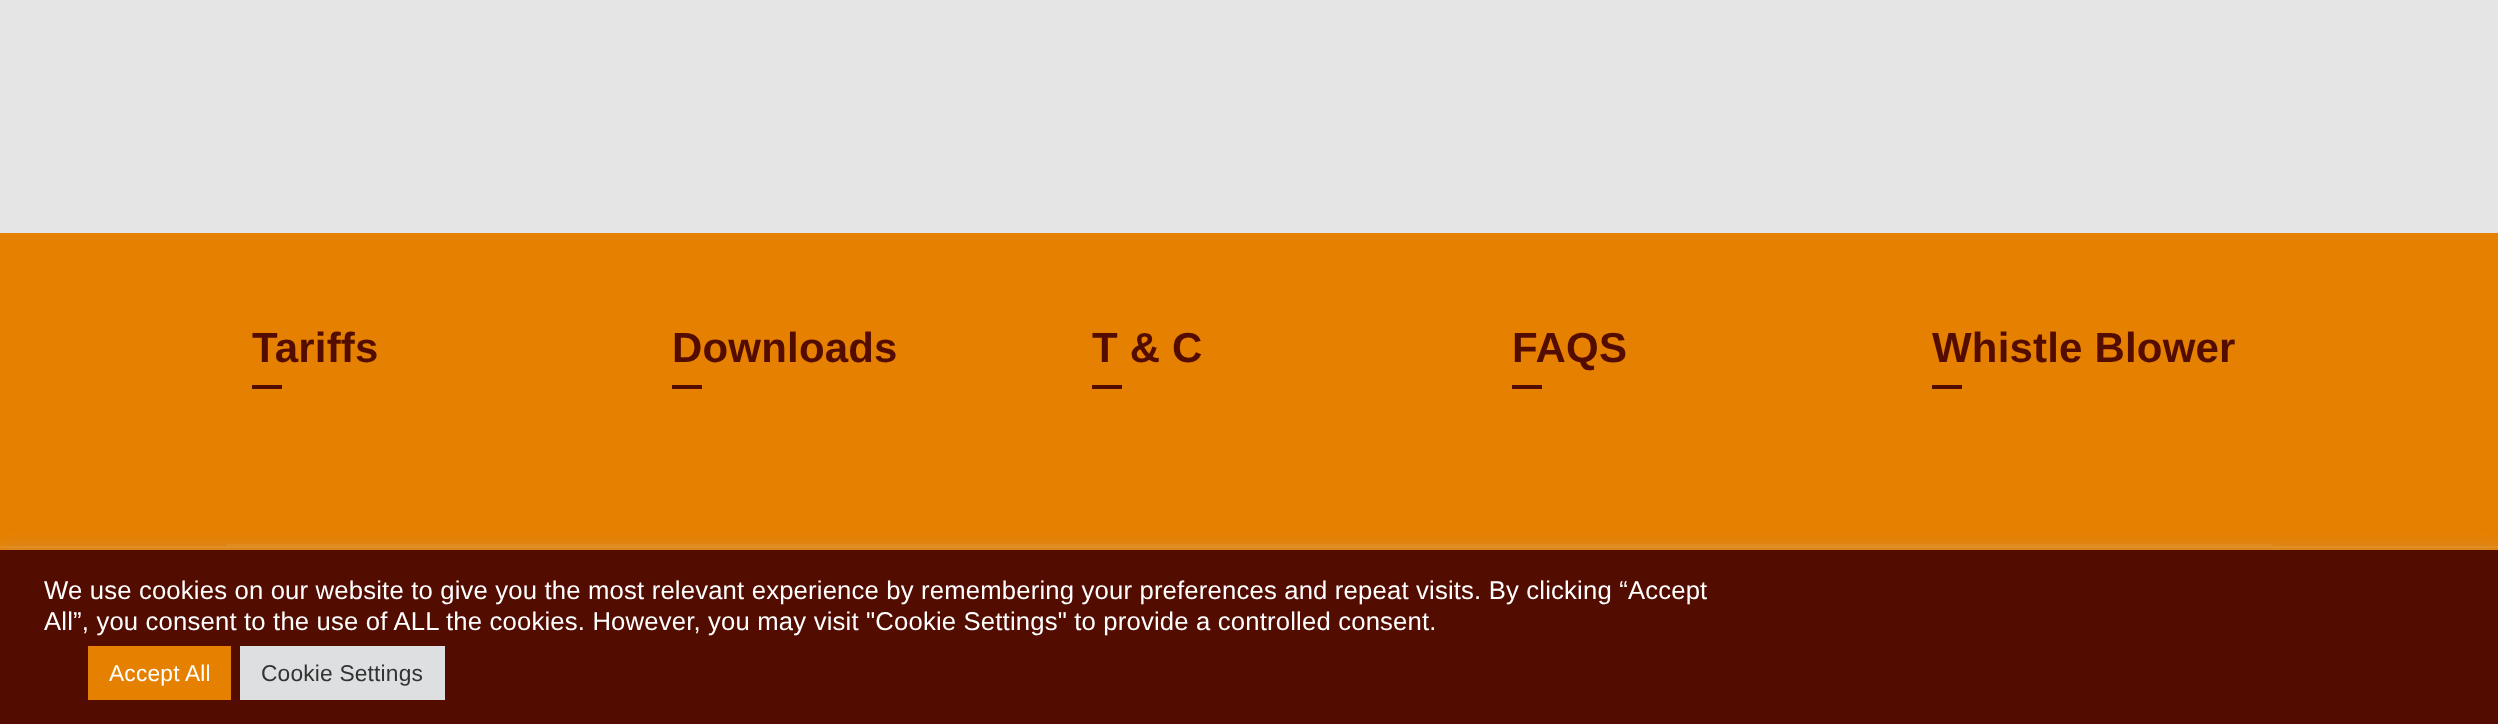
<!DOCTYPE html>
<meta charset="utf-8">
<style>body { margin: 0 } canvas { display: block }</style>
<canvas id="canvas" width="2498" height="724"></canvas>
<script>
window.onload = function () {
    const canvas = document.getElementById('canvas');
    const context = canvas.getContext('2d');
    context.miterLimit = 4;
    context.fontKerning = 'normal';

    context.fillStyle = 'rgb(229, 229, 229)';
    context.fillRect(0, 0, 2498, 724);
    context.fillStyle = 'rgb(230, 128, 0)';
    context.fillRect(0, 233, 2498, 313);
    context.fillStyle = 'rgb(232, 136, 15)';
    context.fillRect(226, 544, 2047, 2);
    context.fillStyle = 'rgb(83, 13, 0)';
    context.fillRect(252, 385, 30, 4);
    context.fillRect(672, 385, 30, 4);
    context.fillRect(1092, 385, 30, 4);
    context.fillRect(1512, 385, 30, 4);
    context.fillRect(1932, 385, 30, 4);
    context.fillStyle = 'rgb(230, 128, 0)';
    context.fillRect(0, 548, 2498, 2);
    context.fillStyle = 'rgb(232, 137, 18)';
    context.fillRect(0, 546, 2498, 2);
    context.fillStyle = 'rgba(172, 171, 171, 0.3)';
    context.filter = 'blur(9px)';
    context.beginPath();
    context.rect(0, 548, 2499, 175);
    context.fill();
    context.filter = 'none';
    context.fillStyle = 'rgb(82, 12, 0)';
    context.fillRect(0, 550, 2498, 174);
    context.fillStyle = 'rgb(230, 128, 1)';
    context.fillRect(88, 646, 143, 54);
    context.fillStyle = 'rgb(222, 223, 224)';
    context.fillRect(240, 646, 205, 54);
    context.letterSpacing = '0.18px';
    context.font = 'bold 42px Liberation Sans';
    context.fillStyle = 'rgb(83, 13, 0)';
    context.fillText('Tariffs', 252, 362);
    context.fillText('Downloads', 672, 362);
    context.fillText('T & C', 1092, 362);
    context.fillText('FAQS', 1512, 362);
    context.fillText('Whistle Blower', 1932, 362);
    context.font = '25.67px Liberation Sans';
    context.fillStyle = 'rgb(255, 255, 255)';
    context.fillText('We use cookies on our website to give you the most relevant experience by remembering your preferences and repeat visits. By clicking “Accept', 44, 599);
    context.fillText('All”, you consent to the use of ALL the cookies. However, you may visit "Cookie Settings" to provide a controlled consent.', 44, 630);
    context.font = '22.75px Liberation Sans';
    context.fillText('Accept All', 109, 681);
    context.fillStyle = 'rgb(51, 51, 51)';
    context.fillText('Cookie Settings', 261, 681);
};
</script>
